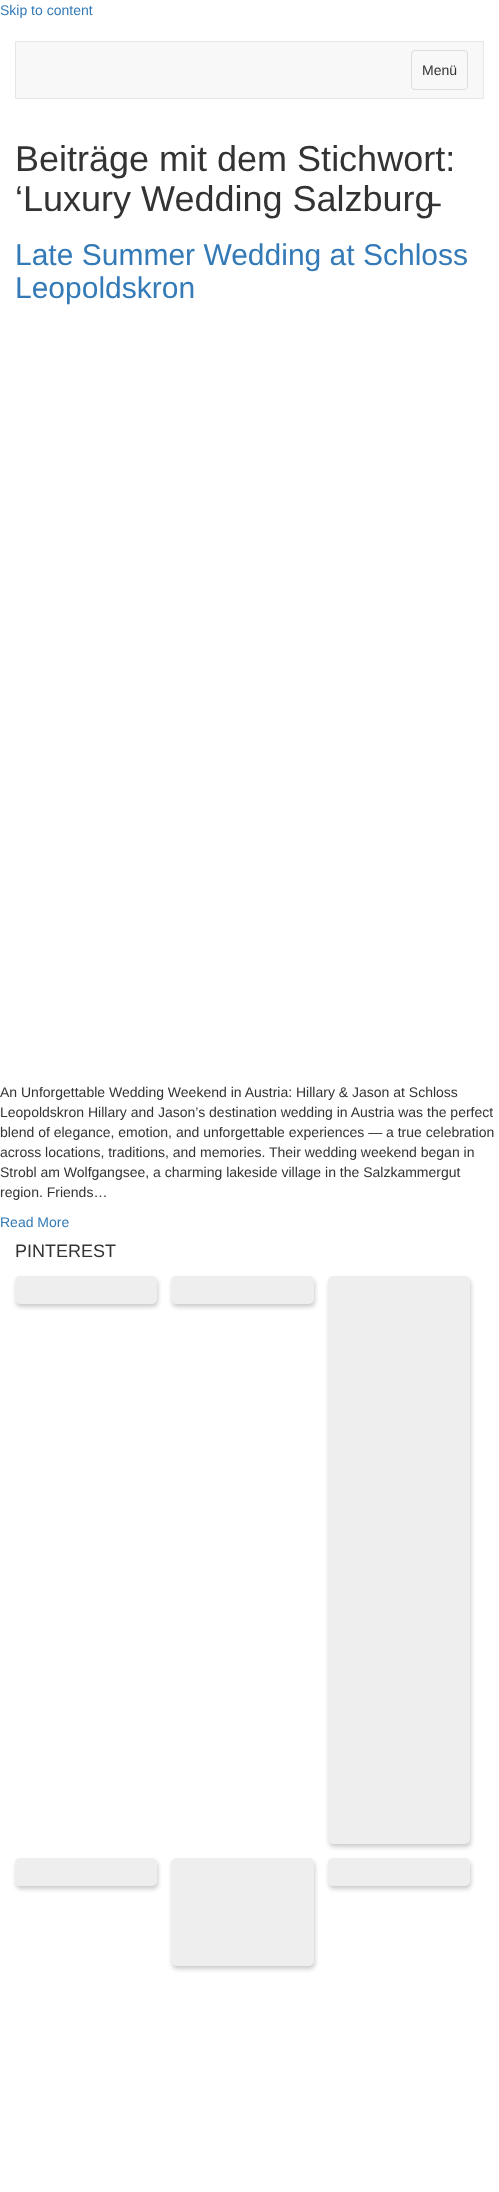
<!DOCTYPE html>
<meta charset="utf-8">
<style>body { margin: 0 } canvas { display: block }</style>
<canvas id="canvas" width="499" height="2192"></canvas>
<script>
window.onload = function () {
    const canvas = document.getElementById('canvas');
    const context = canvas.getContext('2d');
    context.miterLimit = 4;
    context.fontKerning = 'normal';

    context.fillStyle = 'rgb(255, 255, 255)';
    context.fillRect(0, 0, 499, 2192);
    context.fillStyle = 'rgb(248, 248, 248)';
    context.beginPath();
    context.rect(15.5, 41.5, 468, 57);
    context.fill();
    context.strokeStyle = 'rgb(231, 231, 231)';
    context.stroke();
    context.beginPath();
    context.roundRect(411.5, 50.5, 56, 39, 3.5);
    context.strokeStyle = 'rgb(221, 221, 221)';
    context.stroke();
    context.fillStyle = 'rgb(204, 204, 204)';
    context.filter = 'blur(2px)';
    context.beginPath();
    context.roundRect(16, 1279, 142, 28, 5);
    context.fill();
    context.filter = 'none';
    context.fillStyle = 'rgb(238, 238, 238)';
    context.beginPath();
    context.roundRect(15, 1276, 142, 28, 5);
    context.fill();
    context.fillStyle = 'rgb(204, 204, 204)';
    context.filter = 'blur(2px)';
    context.beginPath();
    context.roundRect(172, 1279, 143, 28, 5);
    context.fill();
    context.filter = 'none';
    context.fillStyle = 'rgb(238, 238, 238)';
    context.beginPath();
    context.roundRect(171, 1276, 143, 28, 5);
    context.fill();
    context.fillStyle = 'rgb(204, 204, 204)';
    context.filter = 'blur(2px)';
    context.beginPath();
    context.roundRect(329, 1279, 142, 568, 5);
    context.fill();
    context.filter = 'none';
    context.fillStyle = 'rgb(238, 238, 238)';
    context.beginPath();
    context.roundRect(328, 1276, 142, 568, 5);
    context.fill();
    context.fillStyle = 'rgb(204, 204, 204)';
    context.filter = 'blur(2px)';
    context.beginPath();
    context.roundRect(16, 1861, 142, 28, 5);
    context.fill();
    context.filter = 'none';
    context.fillStyle = 'rgb(238, 238, 238)';
    context.beginPath();
    context.roundRect(15, 1858, 142, 28, 5);
    context.fill();
    context.fillStyle = 'rgb(204, 204, 204)';
    context.filter = 'blur(2px)';
    context.beginPath();
    context.roundRect(172, 1861, 143, 108, 5);
    context.fill();
    context.filter = 'none';
    context.fillStyle = 'rgb(238, 238, 238)';
    context.beginPath();
    context.roundRect(171, 1858, 143, 108, 5);
    context.fill();
    context.fillStyle = 'rgb(204, 204, 204)';
    context.filter = 'blur(2px)';
    context.beginPath();
    context.roundRect(329, 1861, 142, 28, 5);
    context.fill();
    context.filter = 'none';
    context.fillStyle = 'rgb(238, 238, 238)';
    context.beginPath();
    context.roundRect(328, 1858, 142, 28, 5);
    context.fill();
    context.font = '14px Liberation Sans';
    context.fillStyle = 'rgb(51, 122, 183)';
    context.fillText('Skip to content', 0, 15);
    context.fillStyle = 'rgb(51, 51, 51)';
    context.fillText('Menü', 422, 75);
    context.font = '36px Liberation Sans';
    context.fillText('Beiträge mit dem Stichwort:', 15, 171);
    context.fillText('‘Luxury Wedding Salzburg̵', 15, 211);
    context.font = '30px Liberation Sans';
    context.fillStyle = 'rgb(51, 122, 183)';
    context.fillText('Late Summer Wedding at Schloss', 15, 265);
    context.fillText('Leopoldskron', 15, 298);
    context.font = '14px Liberation Sans';
    context.fillStyle = 'rgb(51, 51, 51)';
    context.fillText('An Unforgettable Wedding Weekend in Austria: Hillary & Jason at Schloss', 0, 1097);
    context.fillText('Leopoldskron Hillary and Jason’s destination wedding in Austria was the perfect', 0, 1117);
    context.fillText('blend of elegance, emotion, and unforgettable experiences — a true celebration', 0, 1137);
    context.fillText('across locations, traditions, and memories. Their wedding weekend began in', 0, 1157);
    context.fillText('Strobl am Wolfgangsee, a charming lakeside village in the Salzkammergut', 0, 1177);
    context.fillText('region. Friends…', 0, 1197);
    context.fillStyle = 'rgb(51, 122, 183)';
    context.fillText('Read More', 0, 1227);
    context.font = '18px Liberation Sans';
    context.fillStyle = 'rgb(51, 51, 51)';
    context.fillText('PINTEREST', 15, 1257);
};
</script>
